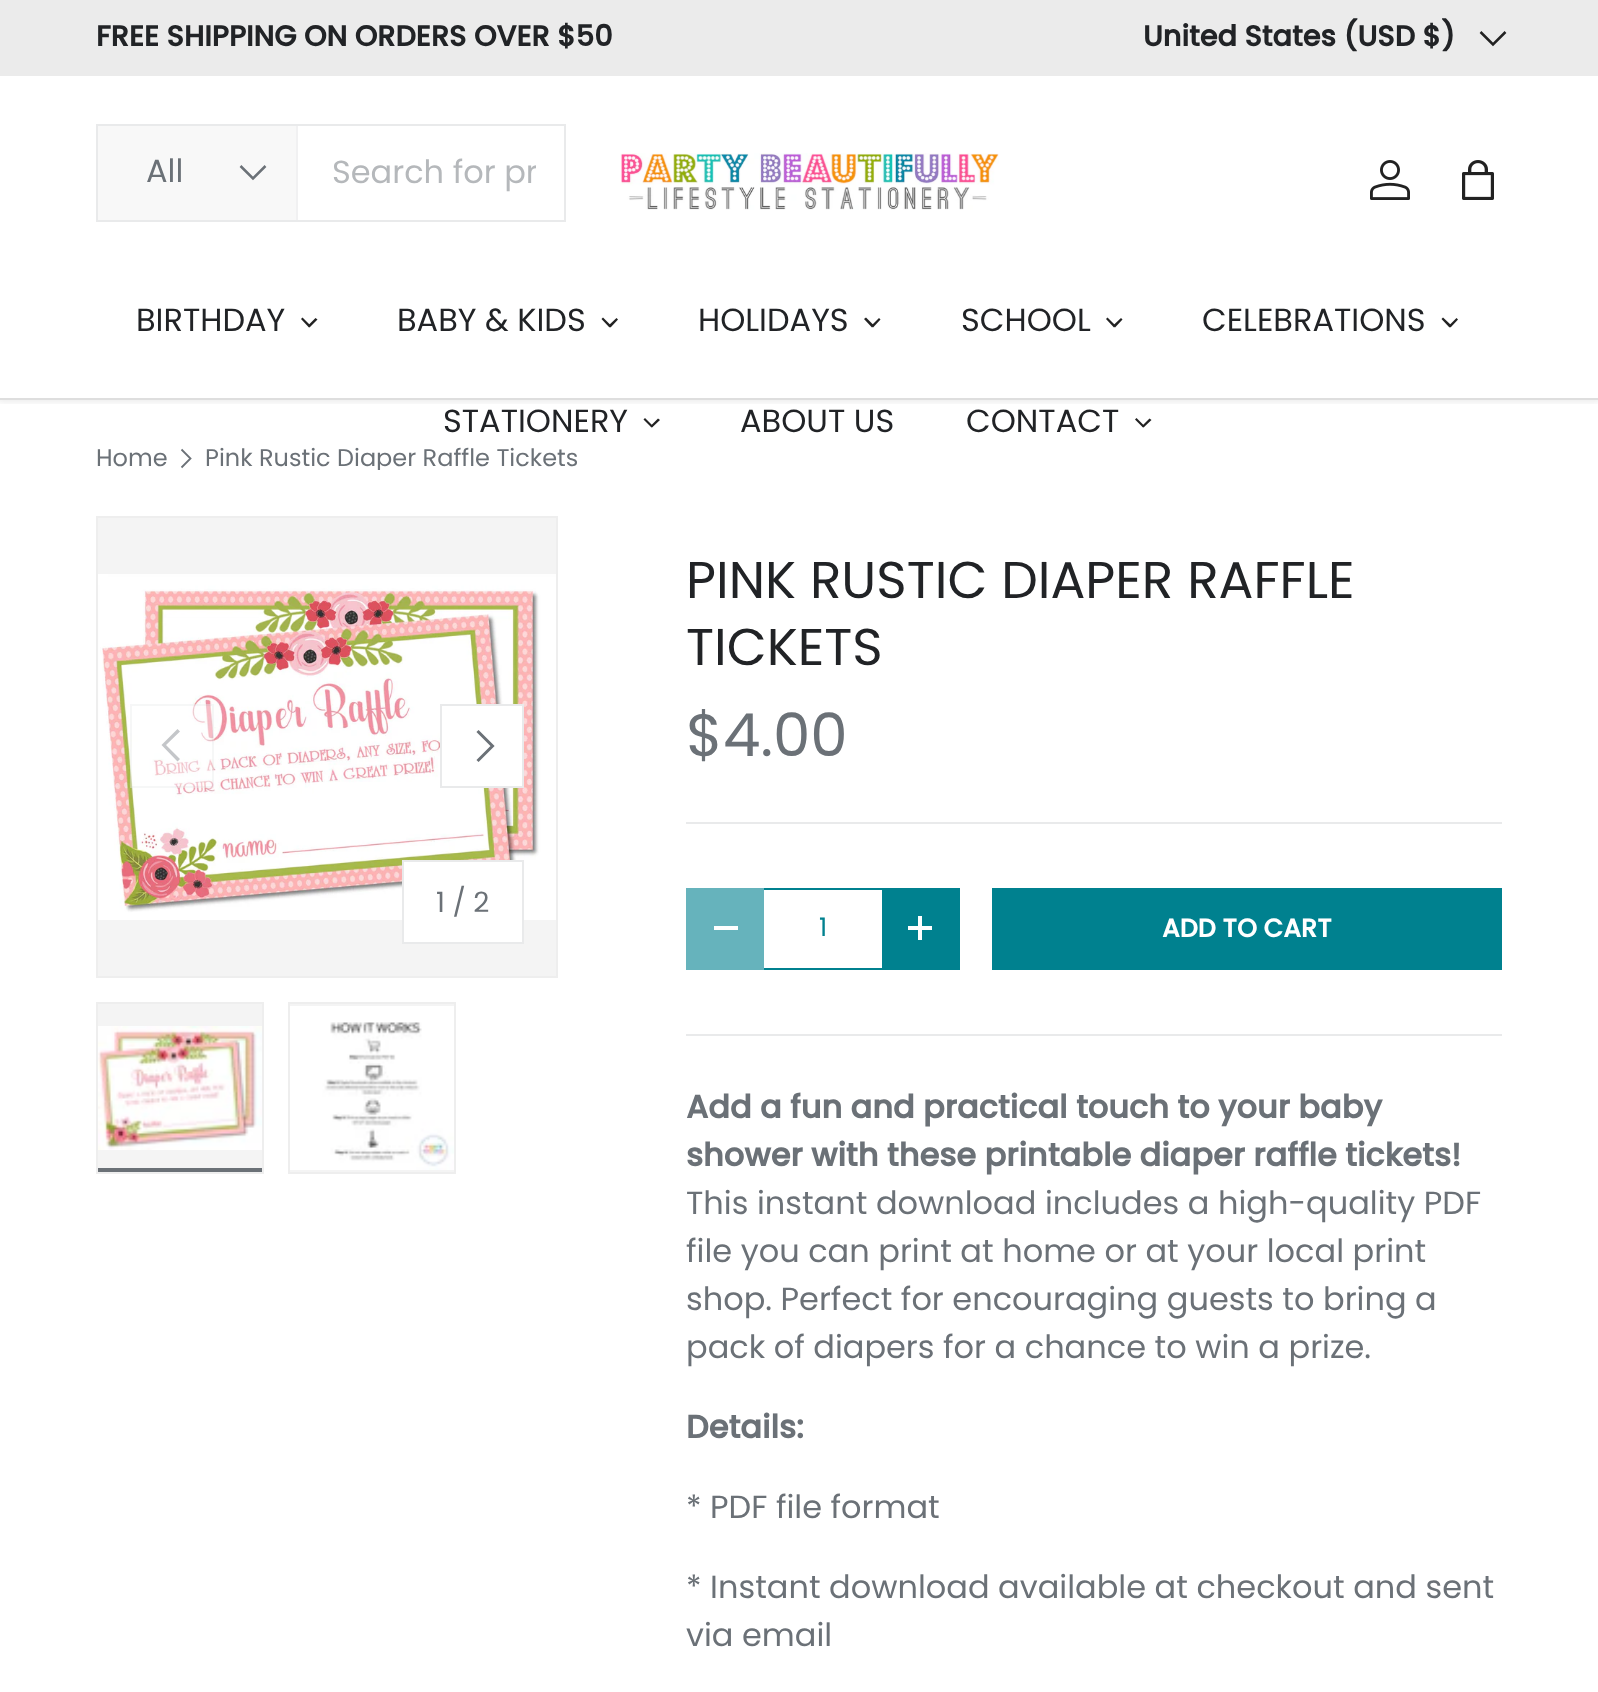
<!DOCTYPE html>
<meta charset="utf-8">
<style>body { margin: 0 } canvas { display: block }</style>
<canvas id="canvas" width="1598" height="1692"></canvas>
<img id="img1" src="images/1.png" hidden>
<img id="img2" src="images/2.png" hidden>
<img id="img3" src="images/3.png" hidden>
<img id="img4" src="images/4.png" hidden>
<img id="img5" src="images/5.png" hidden>
<img id="img6" src="images/6.png" hidden>
<script>
window.onload = function () {
    const canvas = document.getElementById('canvas');
    const context = canvas.getContext('2d');
    context.miterLimit = 4;
    context.fontKerning = 'normal';
    let gradient;

    context.fillStyle = 'rgb(255, 255, 255)';
    context.fillRect(0, 0, 1598, 1692);
    context.save();
    context.beginPath();
    context.rect(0, 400, 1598, 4);
    context.clip();
    context.fillStyle = 'rgba(0, 0, 0, 0.08)';
    context.filter = 'blur(3px)';
    context.beginPath();
    context.rect(-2, 74, 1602, 328);
    context.fill();
    context.filter = 'none';
    context.restore();
    context.fillStyle = 'rgb(235, 235, 235)';
    context.fillRect(0, 0, 1598, 76);
    context.beginPath();
    context.moveTo(1505.5, 32);
    context.lineTo(1493, 44.5);
    context.lineTo(1480.5, 32);
    context.strokeStyle = 'rgb(34, 34, 34)';
    context.lineWidth = 2.5;
    context.stroke();
    context.strokeStyle = 'rgb(233, 234, 235)';
    context.lineWidth = 2;
    context.strokeRect(97, 125, 468, 96);
    context.fillStyle = 'rgb(248, 248, 248)';
    context.fillRect(98, 126, 198, 94);
    context.fillStyle = 'rgb(241, 241, 242)';
    context.fillRect(296, 126, 2, 94);
    context.beginPath();
    context.moveTo(265.5, 166);
    context.lineTo(253, 178.5);
    context.lineTo(240.5, 166);
    context.strokeStyle = 'rgb(107, 113, 119)';
    context.lineWidth = 2.5;
    context.stroke();
    context.drawImage(document.getElementById('img1'), 620, 153, 379, 57);
    context.drawImage(document.getElementById('img2'), 1370, 160, 40, 40);
    context.drawImage(document.getElementById('img3'), 1462, 160, 32, 40);
    context.fillStyle = 'rgb(34, 34, 34)';
    context.beginPath();
    context.moveTo(315.5, 318);
    context.lineTo(317.5, 319.5);
    context.lineTo(309.5, 327.5);
    context.lineTo(308, 325.5);
    context.closePath();
    context.fill();
    context.beginPath();
    context.moveTo(302.5, 317.5);
    context.lineTo(310.5, 325.5);
    context.lineTo(309, 327.5);
    context.lineTo(301, 319);
    context.closePath();
    context.fill();
    context.beginPath();
    context.moveTo(616.5, 318);
    context.lineTo(618, 319.5);
    context.lineTo(610.5, 327.5);
    context.lineTo(608.5, 325.5);
    context.closePath();
    context.fill();
    context.beginPath();
    context.moveTo(603, 317.5);
    context.lineTo(611, 325.5);
    context.lineTo(609.5, 327.5);
    context.lineTo(601.5, 319);
    context.closePath();
    context.fill();
    context.beginPath();
    context.moveTo(879, 318);
    context.lineTo(880.5, 319.5);
    context.lineTo(873, 327.5);
    context.lineTo(871.5, 325.5);
    context.closePath();
    context.fill();
    context.beginPath();
    context.moveTo(866, 317.5);
    context.lineTo(874, 325.5);
    context.lineTo(872, 327.5);
    context.lineTo(864, 319);
    context.closePath();
    context.fill();
    context.beginPath();
    context.moveTo(1121, 318);
    context.lineTo(1122.5, 319.5);
    context.lineTo(1115, 327.5);
    context.lineTo(1113, 325.5);
    context.closePath();
    context.fill();
    context.beginPath();
    context.moveTo(1107.5, 317.5);
    context.lineTo(1115.5, 325.5);
    context.lineTo(1114, 327.5);
    context.lineTo(1106, 319);
    context.closePath();
    context.fill();
    context.beginPath();
    context.moveTo(1456.5, 318);
    context.lineTo(1458, 319.5);
    context.lineTo(1450.5, 327.5);
    context.lineTo(1449, 325.5);
    context.closePath();
    context.fill();
    context.beginPath();
    context.moveTo(1443, 317.5);
    context.lineTo(1451.5, 325.5);
    context.lineTo(1449.5, 327.5);
    context.lineTo(1441.5, 319);
    context.closePath();
    context.fill();
    context.beginPath();
    context.moveTo(658, 418.5);
    context.lineTo(660, 420);
    context.lineTo(652, 427.5);
    context.lineTo(650.5, 426);
    context.closePath();
    context.fill();
    context.beginPath();
    context.moveTo(645, 418);
    context.lineTo(653, 426);
    context.lineTo(651.5, 427.5);
    context.lineTo(643.5, 419.5);
    context.closePath();
    context.fill();
    context.beginPath();
    context.moveTo(1149.5, 418.5);
    context.lineTo(1151.5, 420);
    context.lineTo(1143.5, 427.5);
    context.lineTo(1142, 426);
    context.closePath();
    context.fill();
    context.beginPath();
    context.moveTo(1136.5, 418);
    context.lineTo(1144.5, 426);
    context.lineTo(1143, 427.5);
    context.lineTo(1135, 419.5);
    context.closePath();
    context.fill();
    context.fillStyle = 'rgb(222, 222, 222)';
    context.fillRect(0, 398, 1598, 2);
    context.beginPath();
    context.moveTo(181.5, 449.5);
    context.lineTo(190.5, 458.5);
    context.lineTo(181.5, 467.5);
    context.lineWidth = 1.8;
    context.stroke();
    context.fillStyle = 'rgb(244, 244, 244)';
    context.beginPath();
    context.rect(97, 517, 460, 460);
    context.fill();
    context.strokeStyle = 'rgb(238, 238, 238)';
    context.lineWidth = 2;
    context.stroke();
    context.drawImage(document.getElementById('img4'), 98, 574, 458, 346);
    context.fillStyle = 'rgba(255, 255, 255, 0.4)';
    context.fillRect(130, 704, 84, 84);
    context.strokeStyle = 'rgba(107, 113, 119, 0.06)';
    context.strokeRect(131, 705, 82, 82);
    context.fillStyle = 'rgb(196, 198, 201)';
    context.beginPath();
    context.moveTo(161.5, 745);
    context.lineTo(177.5, 729);
    context.lineTo(180, 731.5);
    context.lineTo(166, 745);
    context.lineTo(180, 759);
    context.lineTo(177.5, 761.5);
    context.closePath();
    context.fill();
    context.fillStyle = 'rgb(255, 255, 255)';
    context.beginPath();
    context.rect(441, 705, 82, 82);
    context.fill();
    context.strokeStyle = 'rgb(233, 234, 235)';
    context.stroke();
    context.beginPath();
    context.moveTo(477.5, 731);
    context.lineTo(492.5, 746);
    context.lineTo(477.5, 761);
    context.strokeStyle = 'rgb(107, 113, 119)';
    context.lineWidth = 3;
    context.stroke();
    context.beginPath();
    context.rect(403, 861, 120, 82);
    context.fill();
    context.strokeStyle = 'rgb(233, 234, 235)';
    context.lineWidth = 2;
    context.stroke();
    context.fillStyle = 'rgb(244, 244, 244)';
    context.fillRect(98, 1004, 164, 164);
    context.strokeStyle = 'rgb(238, 238, 238)';
    context.strokeRect(97, 1003, 166, 170);
    context.drawImage(document.getElementById('img5'), 98, 1026, 164, 124);
    context.fillStyle = 'rgb(107, 113, 119)';
    context.fillRect(98, 1168, 164, 4);
    context.fillStyle = 'rgb(244, 244, 244)';
    context.beginPath();
    context.rect(289, 1003, 166, 170);
    context.fill();
    context.stroke();
    context.drawImage(document.getElementById('img6'), 290, 1006, 164, 164);
    context.fillStyle = 'rgb(233, 234, 235)';
    context.fillRect(686, 822, 816, 2);
    context.fillStyle = 'rgb(102, 179, 188)';
    context.fillRect(686, 888, 78, 82);
    context.fillStyle = 'rgb(255, 255, 255)';
    context.fillRect(714, 926, 24, 4);
    context.fillStyle = 'rgb(0, 129, 143)';
    context.fillRect(764, 968, 118, 2);
    context.fillRect(764, 888, 118, 2);
    context.fillRect(882, 888, 78, 82);
    context.fillStyle = 'rgb(255, 255, 255)';
    context.fillRect(908, 926, 24, 4);
    context.fillRect(918, 916, 4, 24);
    gradient = context.createLinearGradient(7.1, 747, 1467, 1111);
    gradient.addColorStop(0.6, 'rgb(41, 159, 172)');
    gradient.addColorStop(0.6, 'rgb(0, 129, 143)');
    gradient.addColorStop(1, 'rgb(0, 129, 143)');
    context.fillStyle = gradient;
    context.fillRect(992, 888, 510, 82);
    context.fillStyle = 'rgb(233, 234, 235)';
    context.fillRect(686, 1034, 816, 2);
    context.font = 'bold 28.75px Poppins';
    context.fillStyle = 'rgb(33, 35, 38)';
    context.fillText('FREE SHIPPING ON ORDERS OVER $50', 96, 46);
    context.fillText('United States (USD $)', 1143, 46);
    context.font = '32px Poppins';
    context.fillStyle = 'rgb(107, 113, 119)';
    context.fillText('All', 146, 182);
    context.save();
    context.beginPath();
    context.rect(332, 148, 204, 50);
    context.clip();
    context.fillStyle = 'rgb(181, 184, 187)';
    context.fillText('Search for pr', 332, 183);
    context.restore();
    context.fillStyle = 'rgb(33, 35, 38)';
    context.fillText('BIRTHDAY', 136, 331);
    context.fillText('BABY & KIDS', 397, 331);
    context.fillText('HOLIDAYS', 698, 331);
    context.fillText('SCHOOL', 961, 331);
    context.fillText('CELEBRATIONS', 1202, 331);
    context.fillText('STATIONERY', 443, 432);
    context.fillText('ABOUT US', 740, 432);
    context.fillText('CONTACT', 966, 432);
    context.font = '24px Poppins';
    context.fillStyle = 'rgb(107, 113, 119)';
    context.fillText('Home', 96, 466);
    context.save();
    context.beginPath();
    context.rect(206, 446, 372, 24);
    context.clip();
    context.fillText('Pink Rustic Diaper Raffle Tickets', 205, 466);
    context.restore();
    context.font = '28px Poppins';
    context.fillText('1 / 2', 436, 912);
    context.font = '51.75px Poppins';
    context.fillStyle = 'rgb(33, 35, 38)';
    context.fillText('PINK RUSTIC DIAPER RAFFLE', 686, 598);
    context.fillText('TICKETS', 686, 665);
    context.font = '59.5px Poppins';
    context.fillStyle = 'rgb(107, 113, 119)';
    context.fillText('$4.00', 686, 756);
    context.font = '25.5px Poppins';
    context.fillStyle = 'rgb(0, 129, 143)';
    context.fillText('1', 819, 936);
    context.font = 'bold 25.5px Poppins';
    context.fillStyle = 'rgb(255, 255, 255)';
    context.fillText('ADD TO CART', 1162, 937);
    context.font = 'bold 32px Poppins';
    context.fillStyle = 'rgb(107, 113, 119)';
    context.fillText('Add a fun and practical touch to your baby', 686, 1118);
    context.fillText('shower with these printable diaper raffle tickets!', 686, 1166);
    context.font = '32px Poppins';
    context.fillText('This instant download includes a high-quality PDF', 686, 1214);
    context.fillText('file you can print at home or at your local print', 686, 1262);
    context.fillText('shop. Perfect for encouraging guests to bring a', 686, 1310);
    context.fillText('pack of diapers for a chance to win a prize.', 686, 1358);
    context.font = 'bold 32px Poppins';
    context.fillText('Details:', 686, 1438);
    context.font = '32px Poppins';
    context.fillText('* PDF file format', 686, 1518);
    context.fillText('* Instant download available at checkout and sent', 686, 1598);
    context.fillText('via email', 686, 1646);
};
</script>
